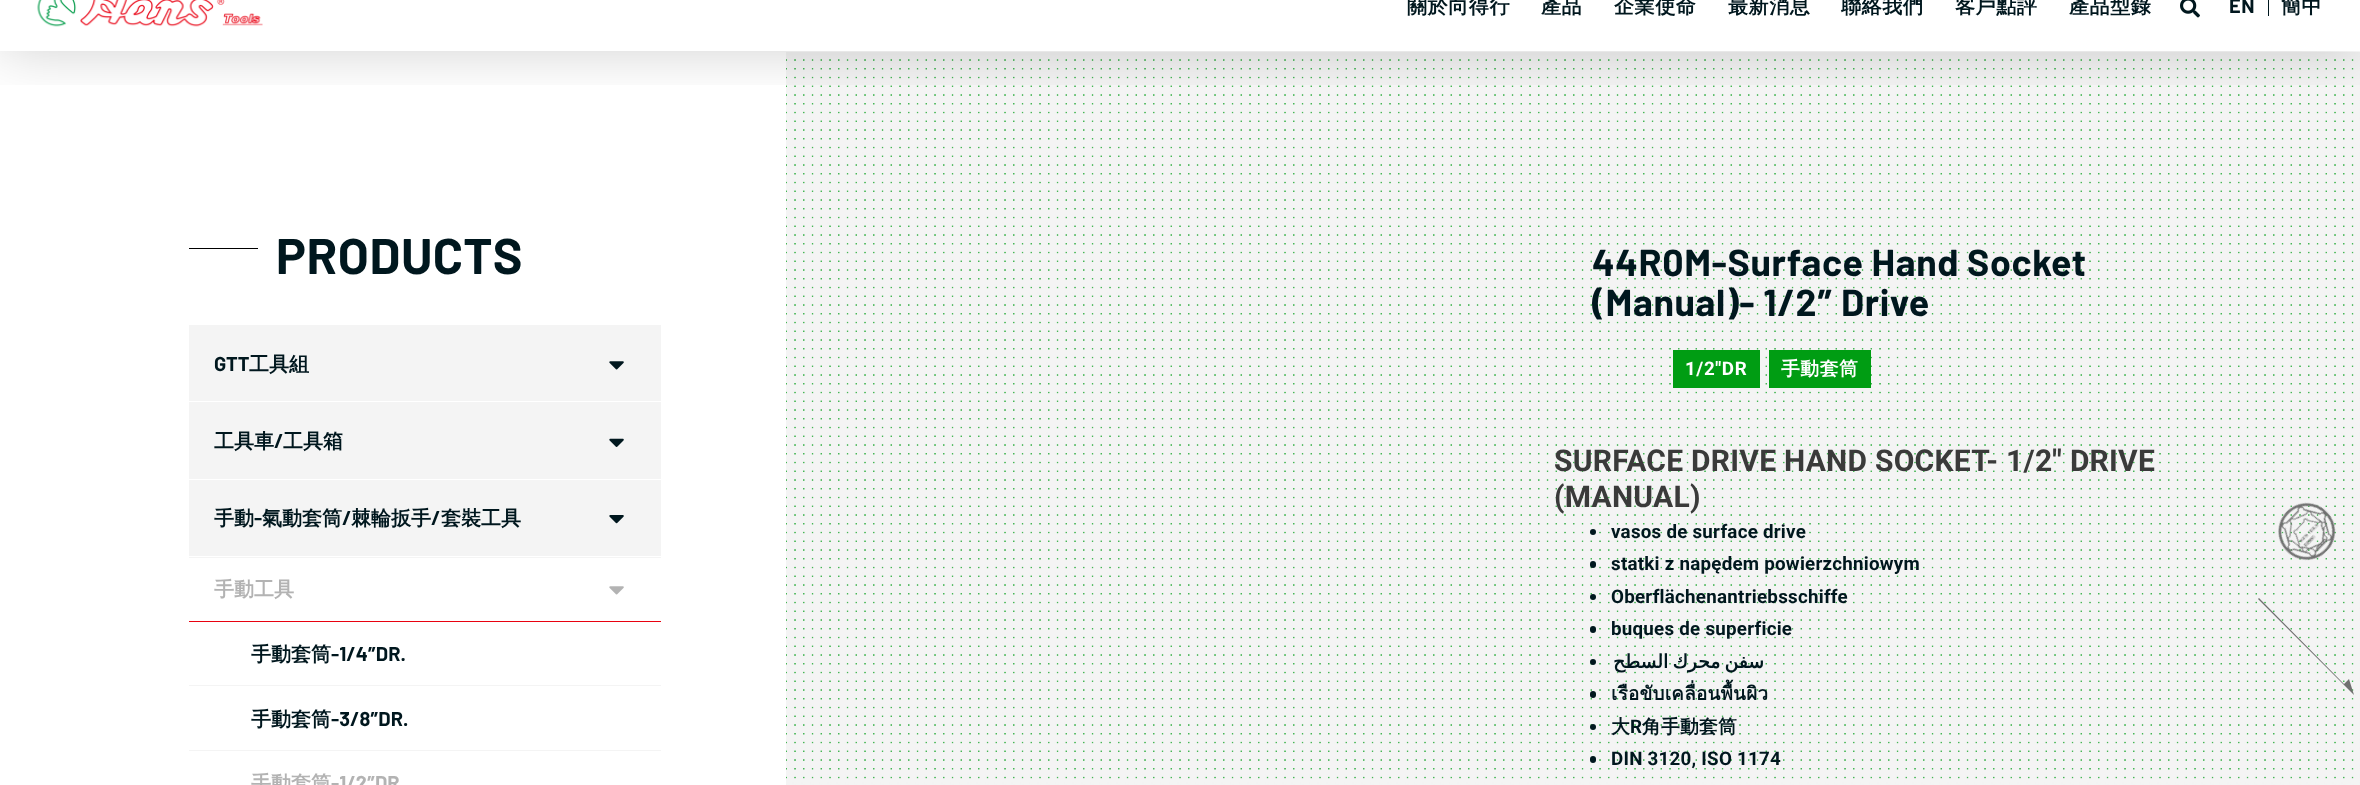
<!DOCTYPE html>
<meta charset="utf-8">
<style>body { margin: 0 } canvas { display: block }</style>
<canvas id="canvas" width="2360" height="785"></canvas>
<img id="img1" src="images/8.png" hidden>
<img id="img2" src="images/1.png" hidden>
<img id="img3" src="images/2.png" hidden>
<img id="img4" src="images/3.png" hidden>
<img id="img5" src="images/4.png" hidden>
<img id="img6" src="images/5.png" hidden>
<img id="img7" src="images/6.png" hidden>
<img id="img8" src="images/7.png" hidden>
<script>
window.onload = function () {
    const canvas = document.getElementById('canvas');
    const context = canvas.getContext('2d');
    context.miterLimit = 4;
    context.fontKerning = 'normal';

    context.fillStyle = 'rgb(255, 255, 255)';
    context.fillRect(0, 0, 2360, 785);
    context.drawImage(document.getElementById('img1'), 786, 52, 1574, 733);
    context.save();
    context.beginPath();
    context.rect(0, 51, 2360, 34);
    context.clip();
    context.fillStyle = 'rgba(0, 0, 0, 0.18)';
    context.filter = 'blur(28px)';
    context.beginPath();
    context.rect(0, -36, 2360, 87);
    context.fill();
    context.filter = 'none';
    context.restore();
    context.drawImage(document.getElementById('img2'), 37, 0, 226, 27);
    context.drawImage(document.getElementById('img3'), 2180, 0, 20, 18);
    context.fillStyle = 'rgb(0, 23, 30)';
    context.fillRect(2268, 0, 1, 16);
    context.drawImage(document.getElementById('img4'), 2278, 502, 58, 59);
    context.fillStyle = 'rgb(112, 112, 112)';
    context.beginPath();
    context.moveTo(2349, 679);
    context.lineTo(2344, 684);
    context.lineTo(2259, 598);
    context.lineTo(2258, 599);
    context.lineTo(2354, 695);
    context.closePath();
    context.fill();
    context.fillStyle = 'rgb(0, 0, 0)';
    context.fillRect(189, 248, 69, 1);
    context.fillStyle = 'rgb(244, 244, 244)';
    context.fillRect(189, 325, 472, 154);
    context.fillStyle = 'rgb(255, 255, 255)';
    context.fillRect(189, 401, 472, 1);
    context.drawImage(document.getElementById('img5'), 609, 361, 15, 9);
    context.drawImage(document.getElementById('img6'), 609, 438, 15, 9);
    context.fillStyle = 'rgb(244, 244, 244)';
    context.fillRect(189, 480, 472, 78);
    context.fillStyle = 'rgb(255, 255, 255)';
    context.fillRect(189, 556, 472, 1);
    context.drawImage(document.getElementById('img7'), 609, 515, 15, 9);
    context.fillStyle = 'rgb(233, 1, 16)';
    context.fillRect(189, 621, 472, 1);
    context.drawImage(document.getElementById('img8'), 609, 586, 15, 9);
    context.fillStyle = 'rgb(244, 244, 244)';
    context.fillRect(189, 685, 472, 1);
    context.fillRect(189, 750, 472, 1);
    context.fillStyle = 'rgb(0, 157, 19)';
    context.fillRect(1673, 350, 87, 38);
    context.fillRect(1769, 350, 102, 38);
    context.fillStyle = 'rgb(0, 23, 30)';
    context.beginPath();
    context.arc(1593, 532, 3, 0, 2 * Math.PI);
    context.fill();
    context.beginPath();
    context.roundRect(1590, 561, 6, 7, 3);
    context.fill();
    context.beginPath();
    context.arc(1593, 597, 3, 0, 2 * Math.PI);
    context.fill();
    context.beginPath();
    context.roundRect(1590, 626, 6, 7, 3);
    context.fill();
    context.beginPath();
    context.arc(1593, 662, 3, 0, 2 * Math.PI);
    context.fill();
    context.beginPath();
    context.roundRect(1590, 691, 6, 7, 3);
    context.fill();
    context.beginPath();
    context.arc(1593, 727, 3, 0, 2 * Math.PI);
    context.fill();
    context.beginPath();
    context.roundRect(1590, 756, 6, 7, 3);
    context.fill();
    context.letterSpacing = '0.6px';
    context.font = 'bold 20px WenQuanYi Zen Hei';
    context.fillText('關於向得行', 1407, 13);
    context.fillText('產品', 1541, 13);
    context.fillText('企業使命', 1614, 13);
    context.fillText('最新消息', 1728, 13);
    context.fillText('聯絡我們', 1841, 13);
    context.fillText('客戶點評', 1955, 13);
    context.fillText('產品型錄', 2069, 13);
    context.font = 'bold 20px Barlow';
    context.fillText('EN', 2229, 13);
    context.font = 'bold 20px WenQuanYi Zen Hei';
    context.fillText('簡中', 2281, 13);
    context.font = 'bold 50px Barlow';
    context.fillText('PRODUCTS', 276, 274);
    context.letterSpacing = '0px';
    context.font = 'bold 20px Barlow';
    context.fillText('GTT', 214, 371);
    context.font = 'bold 20px WenQuanYi Zen Hei';
    context.fillText('工具組', 249, 371);
    context.fillText('工具車', 214, 448);
    context.font = 'bold 20px Barlow';
    context.fillText('/', 274, 448);
    context.font = 'bold 20px WenQuanYi Zen Hei';
    context.fillText('工具箱', 283, 448);
    context.fillText('手動', 214, 525);
    context.font = 'bold 20px Barlow';
    context.fillText('-', 254, 525);
    context.font = 'bold 20px WenQuanYi Zen Hei';
    context.fillText('氣動套筒', 262, 525);
    context.font = 'bold 20px Barlow';
    context.fillText('/', 342, 525);
    context.font = 'bold 20px WenQuanYi Zen Hei';
    context.fillText('棘輪扳手', 351, 525);
    context.font = 'bold 20px Barlow';
    context.fillText('/', 431, 525);
    context.font = 'bold 20px WenQuanYi Zen Hei';
    context.fillText('套裝工具', 441, 525);
    context.fillStyle = 'rgb(179, 179, 179)';
    context.fillText('手動工具', 214, 596);
    context.fillStyle = 'rgb(0, 23, 30)';
    context.fillText('手動套筒', 251, 661);
    context.font = 'bold 20px Barlow';
    context.fillText('-1/4″DR.', 331, 661);
    context.font = 'bold 20px WenQuanYi Zen Hei';
    context.fillText('手動套筒', 251, 726);
    context.font = 'bold 20px Barlow';
    context.fillText('-3/8″DR.', 331, 726);
    context.font = 'bold 20px WenQuanYi Zen Hei';
    context.fillStyle = 'rgb(179, 179, 179)';
    context.fillText('手動套筒', 251, 790);
    context.font = 'bold 20px Barlow';
    context.fillText('-1/2″DR', 331, 790);
    context.letterSpacing = '0.6px';
    context.font = 'bold 37.5px Barlow';
    context.fillStyle = 'rgb(0, 23, 30)';
    context.fillText('44R0M-Surface Hand Socket', 1592, 276);
    context.fillText('(Manual)- 1/2″ Drive', 1592, 316);
    context.font = 'bold 18.75px Roboto';
    context.fillStyle = 'rgb(255, 255, 255)';
    context.fillText('1/2"DR', 1685, 375);
    context.font = 'bold 18.75px WenQuanYi Zen Hei';
    context.fillText('手動套筒', 1781, 375);
    context.letterSpacing = '0.25px';
    context.font = 'bold 30px Roboto';
    context.fillStyle = 'rgb(58, 58, 58)';
    context.fillText('SURFACE DRIVE HAND SOCKET- 1/2″ DRIVE', 1554, 471);
    context.fillText('(MANUAL)', 1554, 507);
    context.font = 'bold 18.75px Roboto';
    context.fillStyle = 'rgb(0, 23, 30)';
    context.fillText('vasos de surface drive', 1611, 538);
    context.fillText('statki z napędem powierzchniowym', 1611, 570);
    context.fillText('Oberflächenantriebsschiffe', 1611, 603);
    context.fillText('buques de superficie', 1611, 635);
    context.wordSpacing = '-2px';
    context.direction = 'rtl';
    context.font = 'bold 18.75px DejaVu Sans';
    context.fillText('سفن محرك السطح', 1764, 668);
    context.wordSpacing = '0px';
    context.direction = 'ltr';
    context.font = 'bold 18.75px Loma';
    context.fillText('เรือขับเคลื่อนพื้นผิว', 1611, 700);
    context.font = 'bold 18.75px WenQuanYi Zen Hei';
    context.fillText('大', 1611, 733);
    context.font = 'bold 18.75px Roboto';
    context.fillText('R', 1630, 733);
    context.font = 'bold 18.75px WenQuanYi Zen Hei';
    context.fillText('角手動套筒', 1642, 733);
    context.font = 'bold 18.75px Roboto';
    context.fillText('DIN 3120, ISO 1174', 1611, 765);
};
</script>
